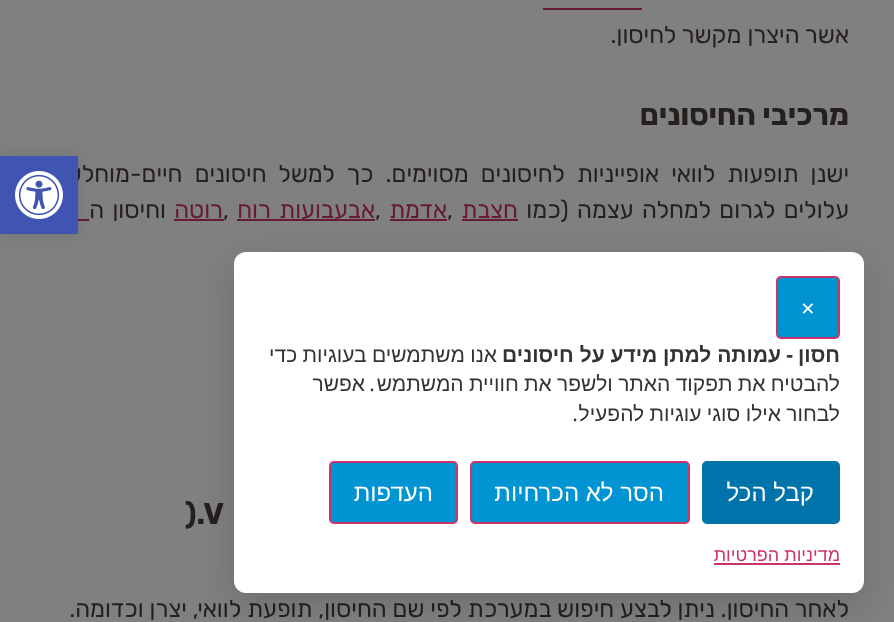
<!DOCTYPE html>
<meta charset="utf-8">
<style>body { margin: 0 } canvas { display: block }</style>
<canvas id="canvas" width="894" height="622"></canvas>
<img id="img1" src="images/1.png" hidden>
<script>
window.onload = function () {
    const canvas = document.getElementById('canvas');
    const context = canvas.getContext('2d');
    context.miterLimit = 4;
    context.fontKerning = 'normal';

    context.fillStyle = 'rgb(128, 128, 128)';
    context.fillRect(0, 0, 894, 622);
    context.fillStyle = 'rgb(102, 26, 51)';
    context.fillRect(543, 8, 99, 2);
    context.fillRect(462, 219, 56, 2);
    context.fillRect(390, 219, 57, 2);
    context.fillRect(237, 219, 138, 2);
    context.fillRect(78, 219, 11, 2);
    context.fillStyle = 'rgba(0, 0, 0, 0.1)';
    context.filter = 'blur(7.5px)';
    context.beginPath();
    context.rect(0, 156, 78, 78);
    context.fill();
    context.filter = 'none';
    context.direction = 'rtl';
    context.font = '24px Rubik';
    context.fillStyle = 'rgb(37, 31, 30)';
    context.fillText('אשר היצרן מקשר לחיסון.', 849, 43);
    context.font = 'bold 30px Rubik';
    context.fillText('מרכיבי החיסונים', 849, 125);
    context.wordSpacing = '6.25px';
    context.font = '24px Rubik';
    context.fillText('ישנן תופעות לוואי אופייניות לחיסונים מסוימים. כך למשל חיסונים חיים-מוחלשים', 849, 182);
    context.wordSpacing = '2.5px';
    context.fillText('עלולים לגרום למחלה עצמה (כמו', 849, 218);
    context.wordSpacing = '0px';
    context.fillStyle = 'rgb(102, 26, 51)';
    context.fillText('חצבת', 518, 218);
    context.direction = 'ltr';
    context.fillStyle = 'rgb(37, 31, 30)';
    context.fillText(',', 447, 218);
    context.direction = 'rtl';
    context.fillStyle = 'rgb(102, 26, 51)';
    context.fillText('אדמת', 447, 218);
    context.direction = 'ltr';
    context.fillStyle = 'rgb(37, 31, 30)';
    context.fillText(',', 375, 218);
    context.wordSpacing = '2.5px';
    context.direction = 'rtl';
    context.fillStyle = 'rgb(102, 26, 51)';
    context.fillText('אבעבועות רוח', 375, 218);
    context.wordSpacing = '0px';
    context.direction = 'ltr';
    context.fillStyle = 'rgb(37, 31, 30)';
    context.fillText(',', 223, 218);
    context.direction = 'rtl';
    context.fillStyle = 'rgb(102, 26, 51)';
    context.fillText('רוטה', 223, 218);
    context.fillRect(174, 219, 50, 2);
    context.wordSpacing = '2.5px';
    context.fillStyle = 'rgb(37, 31, 30)';
    context.fillText('וחיסון ה', 166, 218);
    context.wordSpacing = '0px';
    context.direction = 'ltr';
    context.font = 'bold 30px Rubik';
    context.fillText(').V', 185, 524);
    context.direction = 'rtl';
    context.font = '24px Rubik';
    context.fillText('לאחר החיסון. ניתן לבצע חיפוש במערכת לפי שם החיסון, תופעת לוואי, יצרן וכדומה.', 849, 617);
    context.fillStyle = 'rgb(64, 84, 178)';
    context.fillRect(0, 156, 78, 78);
    context.drawImage(document.getElementById('img1'), 15, 171, 48, 48);
    context.fillStyle = 'rgba(0, 0, 0, 0.15)';
    context.filter = 'blur(18px)';
    context.beginPath();
    context.roundRect(234, 264, 630, 341, 12);
    context.fill();
    context.filter = 'none';
    context.fillStyle = 'rgb(255, 255, 255)';
    context.beginPath();
    context.roundRect(234, 252, 630, 341, 12);
    context.fill();
    context.fillStyle = 'rgb(0, 148, 211)';
    context.beginPath();
    context.roundRect(777, 277, 62, 61, 4);
    context.fill();
    context.strokeStyle = 'rgb(204, 51, 102)';
    context.lineWidth = 2;
    context.stroke();
    context.direction = 'ltr';
    context.font = '24px Noto Sans';
    context.fillStyle = 'rgb(255, 255, 255)';
    context.fillText('×', 801, 317);
    context.direction = 'rtl';
    context.font = 'bold 21px Liberation Sans';
    context.fillStyle = 'rgb(51, 51, 51)';
    context.fillText('חסון', 840, 362);
    context.font = 'bold 21px Noto Sans';
    context.fillText('-', 793, 362);
    context.font = 'bold 21px Liberation Sans';
    context.fillText('עמותה למתן מידע על חיסונים', 781, 362);
    context.wordSpacing = '-0.5px';
    context.font = '21px Liberation Sans';
    context.fillText('אנו משתמשים בעוגיות כדי', 497, 362);
    context.fillText('להבטיח את תפקוד האתר ולשפר את חוויית המשתמש', 840, 391);
    context.wordSpacing = '0px';
    context.font = '21px Noto Sans';
    context.fillText('.', 375, 391);
    context.font = '21px Liberation Sans';
    context.fillText('אפשר', 365, 391);
    context.wordSpacing = '-0.5px';
    context.fillText('לבחור אילו סוגי עוגיות להפעיל', 840, 421);
    context.wordSpacing = '0px';
    context.font = '21px Noto Sans';
    context.fillText('.', 578, 421);
    context.fillStyle = 'rgb(0, 115, 170)';
    context.beginPath();
    context.roundRect(703, 462, 136, 61, 4);
    context.fill();
    context.strokeStyle = 'rgb(0, 115, 170)';
    context.stroke();
    context.font = '24px Liberation Sans';
    context.fillStyle = 'rgb(255, 255, 255)';
    context.fillText('קבל הכל', 814, 501);
    context.fillStyle = 'rgb(0, 148, 211)';
    context.beginPath();
    context.roundRect(471, 462, 218, 61, 4);
    context.fill();
    context.strokeStyle = 'rgb(204, 51, 102)';
    context.stroke();
    context.fillStyle = 'rgb(255, 255, 255)';
    context.fillText('הסר לא הכרחיות', 664, 501);
    context.fillStyle = 'rgb(0, 148, 211)';
    context.beginPath();
    context.roundRect(330, 462, 127, 61, 4);
    context.fill();
    context.stroke();
    context.fillStyle = 'rgb(255, 255, 255)';
    context.fillText('העדפות', 433, 501);
    context.font = '18px Liberation Sans';
    context.fillStyle = 'rgb(204, 51, 102)';
    context.fillText('מדיניות הפרטיות', 840, 561);
    context.fillRect(714, 563, 126, 2);
};
</script>
